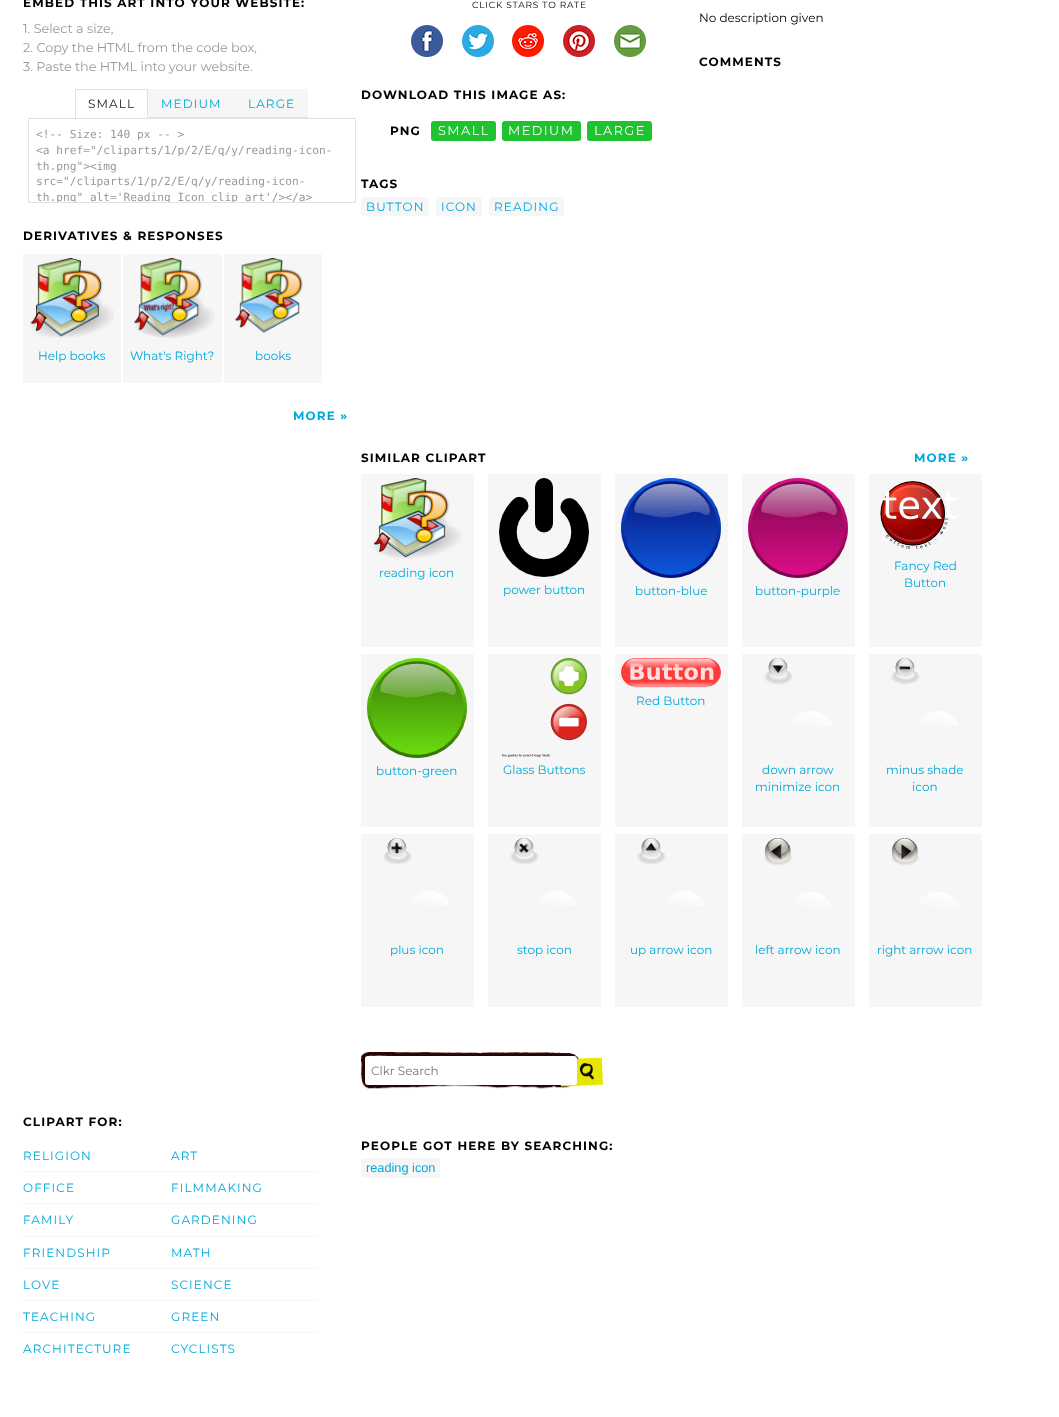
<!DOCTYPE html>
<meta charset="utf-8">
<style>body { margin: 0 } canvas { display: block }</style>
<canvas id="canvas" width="1059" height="1417"></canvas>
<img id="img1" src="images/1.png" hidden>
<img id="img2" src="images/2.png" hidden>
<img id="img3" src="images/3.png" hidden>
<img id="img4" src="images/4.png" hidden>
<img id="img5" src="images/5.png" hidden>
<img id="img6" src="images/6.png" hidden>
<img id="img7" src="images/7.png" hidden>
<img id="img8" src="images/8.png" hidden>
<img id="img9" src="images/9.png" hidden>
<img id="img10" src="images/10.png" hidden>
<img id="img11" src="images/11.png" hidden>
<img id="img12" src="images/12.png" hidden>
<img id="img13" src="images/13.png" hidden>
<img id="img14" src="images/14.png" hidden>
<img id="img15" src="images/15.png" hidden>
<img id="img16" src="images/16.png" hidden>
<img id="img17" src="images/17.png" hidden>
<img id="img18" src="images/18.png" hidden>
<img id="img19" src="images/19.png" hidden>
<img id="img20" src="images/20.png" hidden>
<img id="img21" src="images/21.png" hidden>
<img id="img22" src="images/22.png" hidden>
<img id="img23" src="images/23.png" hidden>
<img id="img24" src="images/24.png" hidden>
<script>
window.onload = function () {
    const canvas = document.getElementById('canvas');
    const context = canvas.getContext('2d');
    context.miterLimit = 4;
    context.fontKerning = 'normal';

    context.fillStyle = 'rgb(255, 255, 255)';
    context.fillRect(0, 0, 1059, 1417);
    context.fillStyle = 'rgb(225, 225, 225)';
    context.fillRect(75, 89, 73, 1);
    context.beginPath();
    context.moveTo(148, 89);
    context.lineTo(148, 120);
    context.lineTo(147, 117);
    context.lineTo(147, 90);
    context.closePath();
    context.fill();
    context.fillStyle = 'rgb(255, 255, 255)';
    context.beginPath();
    context.moveTo(148, 120);
    context.lineTo(75, 120);
    context.lineTo(76, 117);
    context.lineTo(147, 117);
    context.closePath();
    context.fill();
    context.fillStyle = 'rgb(225, 225, 225)';
    context.beginPath();
    context.moveTo(75, 120);
    context.lineTo(75, 89);
    context.lineTo(76, 90);
    context.lineTo(76, 117);
    context.closePath();
    context.fill();
    context.fillStyle = 'rgb(246, 246, 246)';
    context.fillRect(149, 89, 86, 28);
    context.fillStyle = 'rgb(225, 225, 225)';
    context.fillRect(148, 117, 160, 1);
    context.fillStyle = 'rgb(246, 246, 246)';
    context.fillRect(148, 89, 1, 29);
    context.fillRect(236, 89, 72, 28);
    context.fillRect(235, 89, 1, 29);
    context.strokeStyle = 'rgb(225, 225, 225)';
    context.strokeRect(28.5, 118.5, 327, 84);
    context.fillRect(23, 254, 98, 129);
    context.drawImage(document.getElementById('img1'), 30, 258, 84, 80);
    context.fillRect(123, 254, 99, 129);
    context.drawImage(document.getElementById('img2'), 134, 258, 81, 80);
    context.fillRect(224, 254, 98, 129);
    context.drawImage(document.getElementById('img3'), 235, 258, 68, 75);
    context.drawImage(document.getElementById('img4'), 411, 25, 32, 32);
    context.drawImage(document.getElementById('img5'), 462, 25, 32, 32);
    context.drawImage(document.getElementById('img6'), 512, 25, 32, 32);
    context.drawImage(document.getElementById('img7'), 563, 25, 32, 32);
    context.drawImage(document.getElementById('img8'), 614, 25, 32, 32);
    context.fillStyle = 'rgb(31, 194, 47)';
    context.beginPath();
    context.roundRect(431, 121, 65, 20, 3);
    context.fill();
    context.beginPath();
    context.roundRect(502, 121, 79, 20, 3);
    context.fill();
    context.beginPath();
    context.roundRect(587, 121, 65, 20, 3);
    context.fill();
    context.fillStyle = 'rgb(246, 246, 246)';
    context.beginPath();
    context.roundRect(361, 197, 68, 19, 3);
    context.fill();
    context.beginPath();
    context.roundRect(436, 197, 46, 19, 3);
    context.fill();
    context.beginPath();
    context.roundRect(489, 197, 75, 19, 3);
    context.fill();
    context.fillRect(361, 474, 113, 173);
    context.drawImage(document.getElementById('img9'), 372, 478, 90, 81);
    context.fillRect(869, 474, 113, 173);
    context.drawImage(document.getElementById('img10'), 880, 481, 77, 68);
    context.fillRect(488, 474, 113, 173);
    context.drawImage(document.getElementById('img11'), 499, 478, 90, 99);
    context.fillRect(615, 474, 113, 173);
    context.drawImage(document.getElementById('img12'), 621, 478, 100, 100);
    context.fillRect(742, 474, 113, 173);
    context.drawImage(document.getElementById('img13'), 748, 478, 100, 100);
    context.fillRect(615, 654, 113, 173);
    context.drawImage(document.getElementById('img14'), 621, 658, 100, 30);
    context.fillRect(361, 654, 113, 173);
    context.drawImage(document.getElementById('img15'), 367, 658, 100, 100);
    context.fillRect(488, 654, 113, 173);
    context.drawImage(document.getElementById('img16'), 502, 658, 85, 99);
    context.fillRect(742, 654, 113, 173);
    context.drawImage(document.getElementById('img17'), 764, 658, 68, 68);
    context.fillRect(869, 654, 113, 173);
    context.drawImage(document.getElementById('img18'), 891, 658, 68, 68);
    context.fillRect(361, 834, 113, 173);
    context.drawImage(document.getElementById('img19'), 383, 838, 68, 68);
    context.fillRect(488, 834, 113, 173);
    context.drawImage(document.getElementById('img20'), 510, 838, 68, 68);
    context.fillRect(615, 834, 113, 173);
    context.drawImage(document.getElementById('img21'), 637, 838, 68, 68);
    context.fillRect(742, 834, 113, 173);
    context.drawImage(document.getElementById('img22'), 764, 838, 67, 69);
    context.fillRect(869, 834, 113, 173);
    context.drawImage(document.getElementById('img23'), 891, 838, 67, 69);
    context.fillRect(23, 1171, 296, 1);
    context.fillRect(23, 1203, 296, 1);
    context.fillRect(23, 1236, 296, 1);
    context.fillRect(23, 1268, 296, 1);
    context.fillRect(23, 1300, 296, 1);
    context.fillRect(23, 1332, 296, 1);
    context.drawImage(document.getElementById('img24'), 361, 1052, 242, 37);
    context.fillStyle = 'rgb(255, 255, 255)';
    context.beginPath();
    context.roundRect(365, 1056, 212, 29, 3);
    context.fill();
    context.fillStyle = 'rgb(246, 246, 246)';
    context.beginPath();
    context.roundRect(361, 1158, 79, 20, 3);
    context.fill();
    context.letterSpacing = '1.1px';
    context.font = 'bold 12px Montserrat';
    context.fillStyle = 'rgb(0, 0, 0)';
    context.fillText('EMBED THIS ART INTO YOUR WEBSITE:', 23, 7);
    context.letterSpacing = '0px';
    context.font = '12.75px Montserrat';
    context.fillStyle = 'rgb(153, 153, 153)';
    context.fillText('1. Select a size,', 23, 33);
    context.fillText('2. Copy the HTML from the code box,', 23, 52);
    context.fillText('3. Paste the HTML into your website.', 23, 71);
    context.letterSpacing = '1.1px';
    context.font = '12px Montserrat';
    context.fillStyle = 'rgb(34, 34, 34)';
    context.fillText('SMALL', 88, 108);
    context.fillStyle = 'rgb(0, 169, 219)';
    context.fillText('MEDIUM', 161, 108);
    context.fillText('LARGE', 248, 108);
    context.letterSpacing = '0px';
    context.font = '11.2px DejaVu Sans Mono';
    context.fillStyle = 'rgb(153, 153, 153)';
    context.fillText('<\!-- Size: 140 px -- >', 36, 138);
    context.fillText('<a href="/cliparts/1/p/2/E/q/y/reading-icon-', 36, 154);
    context.fillText('th.png"><img', 36, 170);
    context.fillText('src="/cliparts/1/p/2/E/q/y/reading-icon-', 36, 185);
    context.save();
    context.beginPath();
    context.rect(29, 119, 326, 83);
    context.clip();
    context.fillText('th.png" alt=\'Reading Icon clip art\'/><\/a>', 36, 201);
    context.restore();
    context.letterSpacing = '1.1px';
    context.font = 'bold 12px Montserrat';
    context.fillStyle = 'rgb(0, 0, 0)';
    context.fillText('DERIVATIVES & RESPONSES', 23, 240);
    context.letterSpacing = '0px';
    context.font = '12px Montserrat';
    context.fillStyle = 'rgb(0, 169, 219)';
    context.fillText('Help books', 38, 360);
    context.fillText('What\'s Right?', 130, 360);
    context.fillText('books', 255, 360);
    context.letterSpacing = '1.1px';
    context.font = 'bold 12px Montserrat';
    context.fillText('MORE »', 293, 420);
    context.letterSpacing = '0.8px';
    context.font = '9px Montserrat';
    context.fillStyle = 'rgb(0, 0, 0)';
    context.fillText('CLICK STARS TO RATE', 472, 8);
    context.letterSpacing = '1.1px';
    context.font = 'bold 12px Montserrat';
    context.fillText('DOWNLOAD THIS IMAGE AS:', 361, 99);
    context.fillText('PNG', 390, 135);
    context.letterSpacing = '1.5px';
    context.font = '12.75px Montserrat';
    context.fillStyle = 'rgb(255, 255, 255)';
    context.fillText('SMALL', 438, 135);
    context.fillText('MEDIUM', 508, 135);
    context.fillText('LARGE', 594, 135);
    context.letterSpacing = '1.1px';
    context.font = 'bold 12px Montserrat';
    context.fillStyle = 'rgb(0, 0, 0)';
    context.fillText('TAGS', 361, 188);
    context.font = '12px Montserrat';
    context.fillStyle = 'rgb(0, 169, 219)';
    context.fillText('BUTTON', 366, 211);
    context.fillText('ICON', 441, 211);
    context.fillText('READING', 494, 211);
    context.letterSpacing = '0px';
    context.fillStyle = 'rgb(0, 0, 0)';
    context.fillText('No description given', 699, 22);
    context.letterSpacing = '1.1px';
    context.font = 'bold 12px Montserrat';
    context.fillText('COMMENTS', 699, 66);
    context.fillText('SIMILAR CLIPART', 361, 462);
    context.fillStyle = 'rgb(0, 169, 219)';
    context.fillText('MORE »', 914, 462);
    context.letterSpacing = '0px';
    context.font = '12px Montserrat';
    context.fillText('reading icon', 379, 577);
    context.fillText('Fancy Red', 894, 570);
    context.fillText('Button', 904, 587);
    context.fillText('power button', 503, 594);
    context.fillText('button-blue', 635, 595);
    context.fillText('button-purple', 755, 595);
    context.fillText('Red Button', 636, 705);
    context.fillText('button-green', 376, 775);
    context.fillText('Glass Buttons', 503, 774);
    context.fillText('down arrow', 762, 774);
    context.fillText('minimize icon', 755, 791);
    context.fillText('minus shade', 886, 774);
    context.fillText('icon', 912, 791);
    context.fillText('plus icon', 390, 954);
    context.fillText('stop icon', 517, 954);
    context.fillText('up arrow icon', 630, 954);
    context.fillText('left arrow icon', 755, 954);
    context.fillText('right arrow icon', 877, 954);
    context.letterSpacing = '1.1px';
    context.font = 'bold 12px Montserrat';
    context.fillStyle = 'rgb(0, 0, 0)';
    context.fillText('CLIPART FOR:', 23, 1126);
    context.font = '12px Montserrat';
    context.fillStyle = 'rgb(0, 169, 219)';
    context.fillText('RELIGION', 23, 1160);
    context.fillText('OFFICE', 23, 1192);
    context.fillText('FAMILY', 23, 1224);
    context.fillText('FRIENDSHIP', 23, 1257);
    context.fillText('LOVE', 23, 1289);
    context.fillText('TEACHING', 23, 1321);
    context.fillText('ARCHITECTURE', 23, 1353);
    context.fillText('ART', 171, 1160);
    context.fillText('FILMMAKING', 171, 1192);
    context.fillText('GARDENING', 171, 1224);
    context.fillText('MATH', 171, 1257);
    context.fillText('SCIENCE', 171, 1289);
    context.fillText('GREEN', 171, 1321);
    context.fillText('CYCLISTS', 171, 1353);
    context.letterSpacing = '0px';
    context.fillStyle = 'rgb(117, 117, 117)';
    context.fillText('Clkr Search', 371, 1075);
    context.letterSpacing = '1.1px';
    context.font = 'bold 12px Montserrat';
    context.fillStyle = 'rgb(0, 0, 0)';
    context.fillText('PEOPLE GOT HERE BY SEARCHING:', 361, 1150);
    context.letterSpacing = '0px';
    context.font = '12.75px Liberation Sans';
    context.fillStyle = 'rgb(0, 169, 219)';
    context.fillText('reading icon', 366, 1172);
};
</script>
